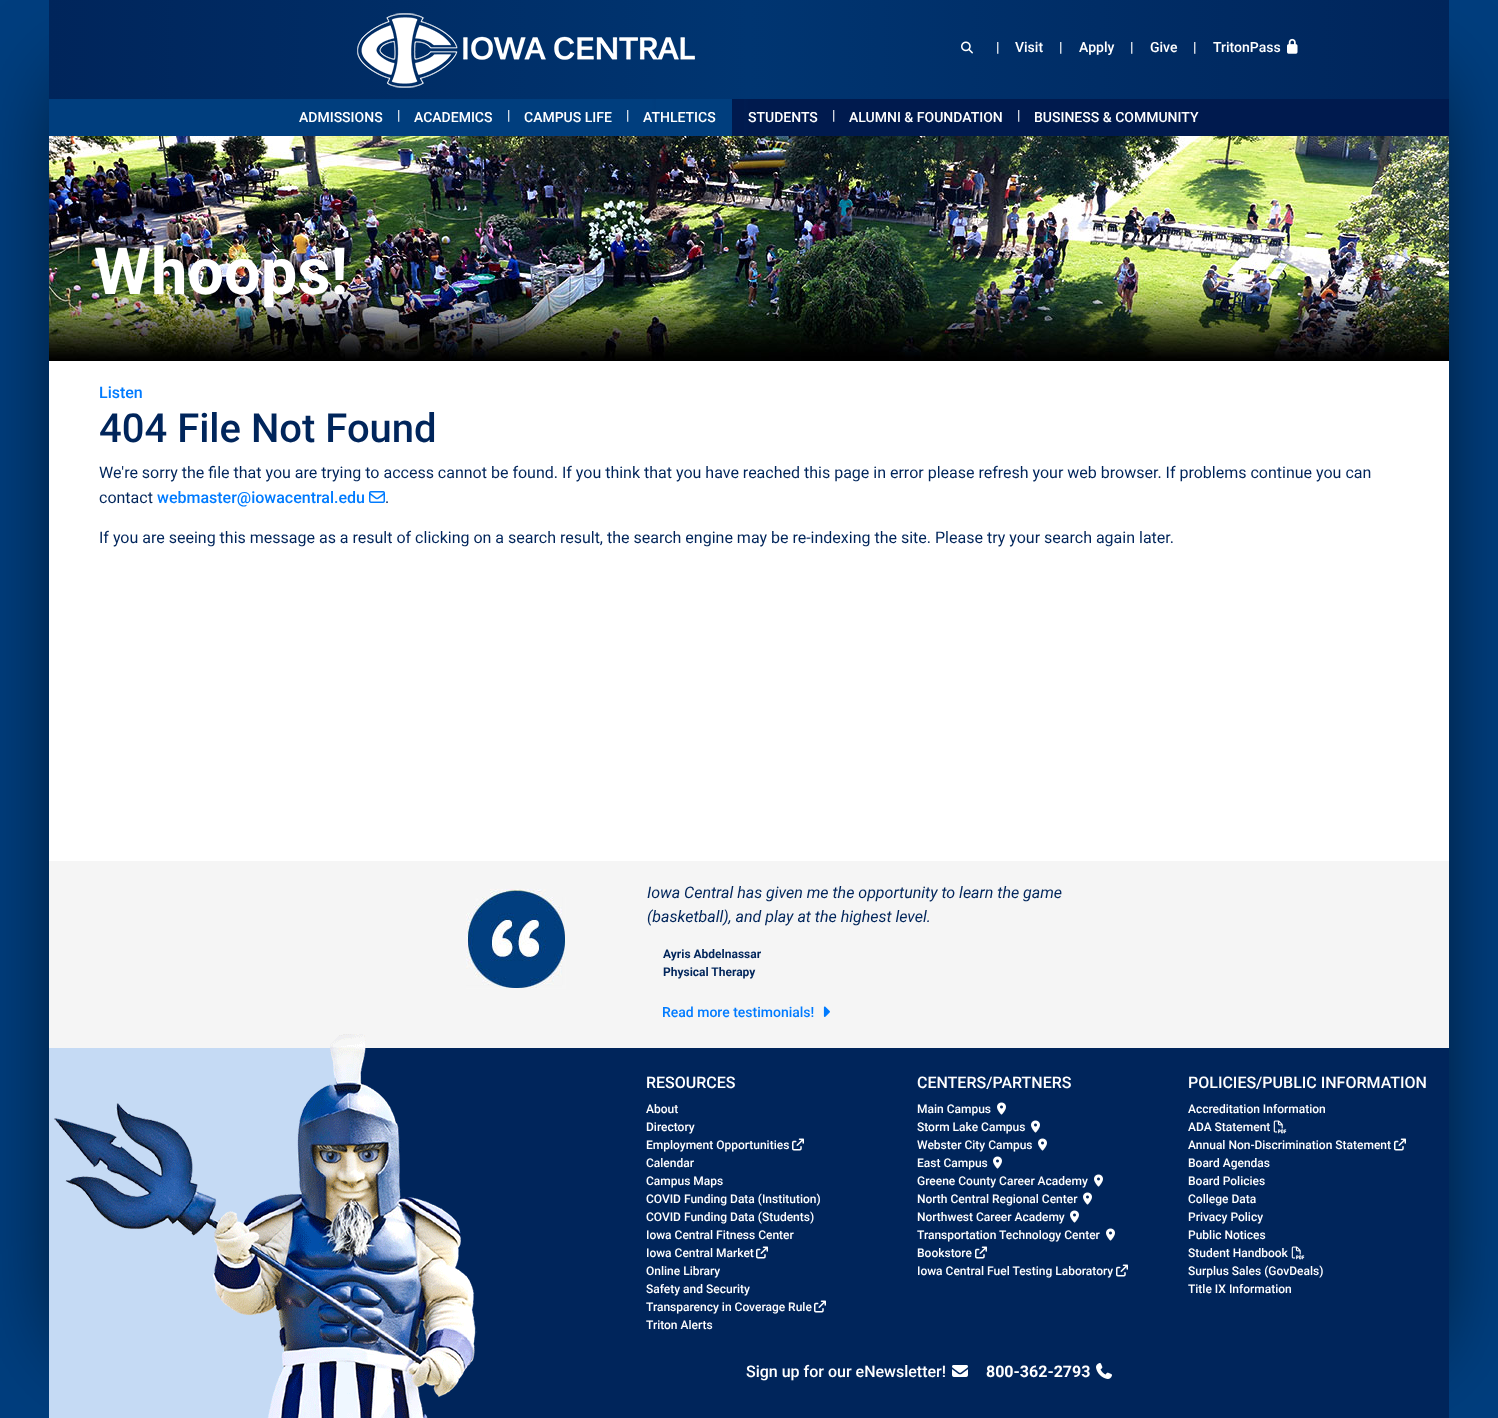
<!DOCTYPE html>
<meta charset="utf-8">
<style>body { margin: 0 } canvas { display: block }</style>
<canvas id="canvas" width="1498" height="1418"></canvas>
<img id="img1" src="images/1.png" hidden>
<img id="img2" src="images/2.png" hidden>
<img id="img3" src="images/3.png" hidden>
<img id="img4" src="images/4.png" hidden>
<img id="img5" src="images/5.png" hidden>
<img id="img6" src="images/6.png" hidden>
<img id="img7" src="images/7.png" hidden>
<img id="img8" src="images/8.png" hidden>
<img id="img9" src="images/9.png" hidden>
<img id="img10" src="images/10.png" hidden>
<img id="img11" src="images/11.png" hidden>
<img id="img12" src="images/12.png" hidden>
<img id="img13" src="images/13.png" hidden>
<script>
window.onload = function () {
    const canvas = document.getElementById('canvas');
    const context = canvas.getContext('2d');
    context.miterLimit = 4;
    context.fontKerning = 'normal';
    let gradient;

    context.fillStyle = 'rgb(0, 62, 126)';
    context.fillRect(0, 0, 1498, 1418);
    context.fillStyle = 'rgb(0, 0, 0)';
    context.filter = 'blur(50px)';
    context.beginPath();
    context.rect(199, 90, 1220, 1248);
    context.fill();
    context.filter = 'none';
    context.filter = 'blur(50px)';
    context.beginPath();
    context.rect(79, 90, 1220, 1248);
    context.fill();
    context.filter = 'none';
    context.fillStyle = 'rgb(0, 37, 91)';
    context.fillRect(477, 1048, 972, 370);
    gradient = context.createLinearGradient(49, 50, 1449, 49);
    gradient.addColorStop(0, 'rgb(0, 37, 91)');
    gradient.addColorStop(0.5, 'rgb(0, 53, 113)');
    gradient.addColorStop(1, 'rgb(0, 37, 91)');
    context.fillStyle = gradient;
    context.fillRect(49, 0, 1400, 99);
    context.drawImage(document.getElementById('img1'), 357, 13, 338, 75);
    context.drawImage(document.getElementById('img2'), 961, 41, 12, 13);
    context.drawImage(document.getElementById('img3'), 1287, 38, 11, 16);
    gradient = context.createLinearGradient(49, 118, 1449, 117);
    gradient.addColorStop(0.43, 'rgb(0, 62, 126)');
    gradient.addColorStop(0.5, 'rgb(0, 26, 78)');
    context.fillStyle = gradient;
    context.fillRect(49, 99, 1400, 37);
    context.fillStyle = 'rgb(0, 62, 126)';
    context.fillRect(656, 99, 76, 37);
    context.fillStyle = 'rgb(0, 26, 78)';
    context.fillRect(732, 99, 12, 37);
    context.drawImage(document.getElementById('img4'), 49, 136, 1400, 225);
    context.fillStyle = 'rgb(255, 255, 255)';
    context.fillRect(49, 361, 1400, 500);
    context.drawImage(document.getElementById('img5'), 369, 491, 16, 12);
    context.fillStyle = 'rgb(245, 245, 245)';
    context.fillRect(49, 861, 1400, 187);
    context.drawImage(document.getElementById('img6'), 466, 889, 100, 100);
    context.drawImage(document.getElementById('img7'), 823, 1006, 7, 11);
    context.drawImage(document.getElementById('img8'), 49, 1034, 428, 384);
    context.drawImage(document.getElementById('img9'), 792, 1138, 12, 13);
    context.drawImage(document.getElementById('img9'), 756, 1246, 12, 13);
    context.drawImage(document.getElementById('img9'), 814, 1300, 12, 13);
    context.drawImage(document.getElementById('img10'), 997, 1102, 9, 13);
    context.drawImage(document.getElementById('img10'), 1031, 1120, 9, 13);
    context.drawImage(document.getElementById('img10'), 1038, 1138, 9, 13);
    context.drawImage(document.getElementById('img10'), 993, 1156, 9, 13);
    context.drawImage(document.getElementById('img10'), 1094, 1174, 9, 13);
    context.drawImage(document.getElementById('img10'), 1083, 1192, 9, 13);
    context.drawImage(document.getElementById('img10'), 1070, 1210, 9, 13);
    context.drawImage(document.getElementById('img10'), 1106, 1228, 9, 13);
    context.drawImage(document.getElementById('img9'), 975, 1246, 12, 13);
    context.drawImage(document.getElementById('img9'), 1116, 1264, 12, 13);
    context.drawImage(document.getElementById('img11'), 1273, 1120, 14, 14);
    context.drawImage(document.getElementById('img9'), 1394, 1138, 12, 13);
    context.drawImage(document.getElementById('img11'), 1291, 1246, 14, 14);
    context.drawImage(document.getElementById('img12'), 952, 1365, 16, 12);
    context.drawImage(document.getElementById('img13'), 1096, 1363, 16, 16);
    context.font = '500 14px Roboto';
    context.fillStyle = 'rgb(255, 255, 255)';
    context.fillText('|', 996, 52);
    context.fillText('Visit', 1015, 52);
    context.fillText('|', 1059, 52);
    context.fillText('Apply', 1079, 52);
    context.fillText('|', 1130, 52);
    context.fillText('Give', 1150, 52);
    context.fillText('|', 1193, 52);
    context.fillText('TritonPass', 1213, 52);
    context.fillText('ADMISSIONS', 299, 122);
    context.font = '14px Roboto';
    context.fillText('|', 397, 120);
    context.font = '500 14px Roboto';
    context.fillText('ACADEMICS', 414, 122);
    context.font = '14px Roboto';
    context.fillText('|', 507, 120);
    context.font = '500 14px Roboto';
    context.fillText('CAMPUS LIFE', 524, 122);
    context.font = '14px Roboto';
    context.fillText('|', 626, 120);
    context.font = '500 14px Roboto';
    context.fillText('ATHLETICS', 643, 122);
    context.fillText('STUDENTS', 748, 122);
    context.font = '14px Roboto';
    context.fillText('|', 832, 120);
    context.font = '500 14px Roboto';
    context.fillText('ALUMNI & FOUNDATION', 849, 122);
    context.font = '14px Roboto';
    context.fillText('|', 1017, 120);
    context.font = '500 14px Roboto';
    context.fillText('BUSINESS & COMMUNITY', 1034, 122);
    context.font = 'bold 65px Roboto';
    context.fillText('Whoops!', 94, 294);
    context.font = '500 16px Roboto';
    context.fillStyle = 'rgb(0, 123, 255)';
    context.fillText('Listen', 99, 398);
    context.font = '500 40px Roboto';
    context.fillStyle = 'rgb(0, 37, 91)';
    context.fillText('404 File Not Found', 99, 442);
    context.font = '16px Roboto';
    context.fillText('We\'re sorry the file that you are trying to access cannot be found. If you think that you have reached this page in error please refresh your web browser. If problems continue you can', 99, 478);
    context.fillText('contact', 99, 503);
    context.font = '500 16px Roboto';
    context.fillStyle = 'rgb(0, 123, 255)';
    context.fillText('webmaster@iowacentral.edu', 157, 503);
    context.font = '16px Roboto';
    context.fillStyle = 'rgb(0, 37, 91)';
    context.fillText('.', 385, 503);
    context.fillText('If you are seeing this message as a result of clicking on a search result, the search engine may be re-indexing the site. Please try your search again later.', 99, 543);
    context.font = 'italic 16px Roboto';
    context.fillText('Iowa Central has given me the opportunity to learn the game', 647, 898);
    context.fillText('(basketball), and play at the highest level.', 647, 922);
    context.font = 'bold 12px Roboto';
    context.fillText('Ayris Abdelnassar', 663, 958);
    context.fillText('Physical Therapy', 663, 976);
    context.font = '500 14px Roboto';
    context.fillStyle = 'rgb(0, 123, 255)';
    context.fillText('Read more testimonials!', 662, 1017);
    context.font = '500 16px Roboto';
    context.fillStyle = 'rgb(255, 255, 255)';
    context.fillText('RESOURCES', 646, 1088);
    context.font = '500 12px Roboto';
    context.fillText('About', 646, 1113);
    context.fillText('Directory', 646, 1131);
    context.fillText('Employment Opportunities', 646, 1149);
    context.fillText('Calendar', 646, 1167);
    context.fillText('Campus Maps', 646, 1185);
    context.fillText('COVID Funding Data (Institution)', 646, 1203);
    context.fillText('COVID Funding Data (Students)', 646, 1221);
    context.fillText('Iowa Central Fitness Center', 646, 1239);
    context.fillText('Iowa Central Market', 646, 1257);
    context.fillText('Online Library', 646, 1275);
    context.fillText('Safety and Security', 646, 1293);
    context.fillText('Transparency in Coverage Rule', 646, 1311);
    context.fillText('Triton Alerts', 646, 1329);
    context.font = '500 16px Roboto';
    context.fillText('CENTERS/PARTNERS', 917, 1088);
    context.font = '500 12px Roboto';
    context.fillText('Main Campus', 917, 1113);
    context.fillText('Storm Lake Campus', 917, 1131);
    context.fillText('Webster City Campus', 917, 1149);
    context.fillText('East Campus', 917, 1167);
    context.fillText('Greene County Career Academy', 917, 1185);
    context.fillText('North Central Regional Center', 917, 1203);
    context.fillText('Northwest Career Academy', 917, 1221);
    context.fillText('Transportation Technology Center', 917, 1239);
    context.fillText('Bookstore', 917, 1257);
    context.fillText('Iowa Central Fuel Testing Laboratory', 917, 1275);
    context.font = '500 16px Roboto';
    context.fillText('POLICIES/PUBLIC INFORMATION', 1188, 1088);
    context.font = '500 12px Roboto';
    context.fillText('Accreditation Information', 1188, 1113);
    context.fillText('ADA Statement', 1188, 1131);
    context.fillText('Annual Non-Discrimination Statement', 1188, 1149);
    context.fillText('Board Agendas', 1188, 1167);
    context.fillText('Board Policies', 1188, 1185);
    context.fillText('College Data', 1188, 1203);
    context.fillText('Privacy Policy', 1188, 1221);
    context.fillText('Public Notices', 1188, 1239);
    context.fillText('Student Handbook', 1188, 1257);
    context.fillText('Surplus Sales (GovDeals)', 1188, 1275);
    context.fillText('Title IX Information', 1188, 1293);
    context.font = '500 16px Roboto';
    context.fillText('Sign up for our eNewsletter!', 746, 1377);
    context.font = 'bold 16px Roboto';
    context.fillText('800-362-2793', 986, 1377);
};
</script>
